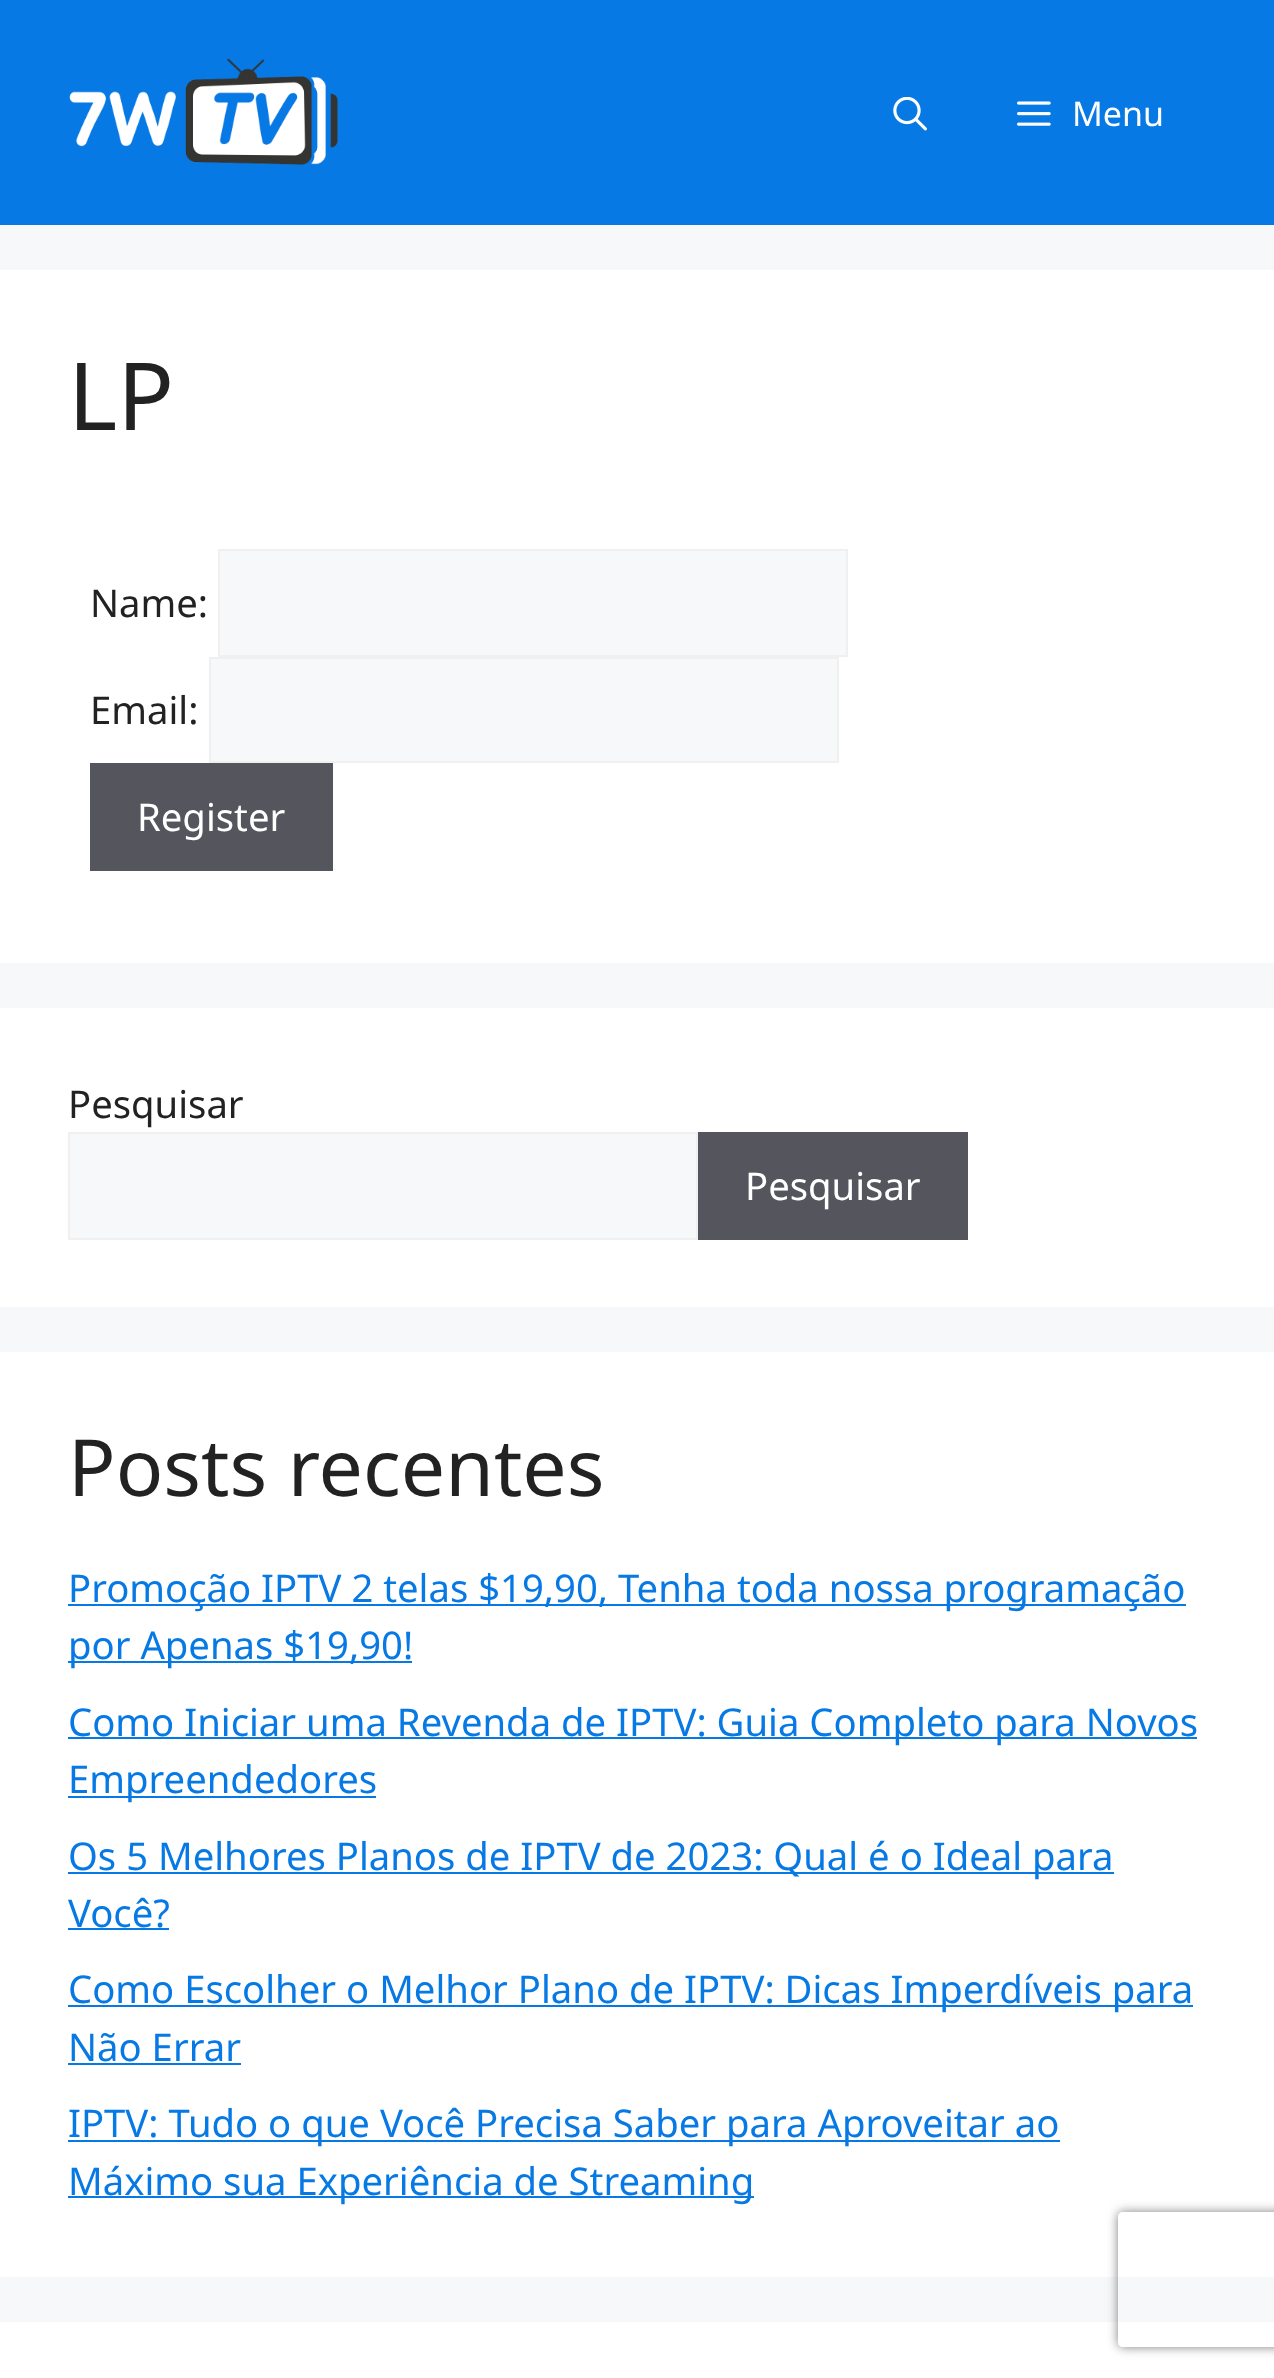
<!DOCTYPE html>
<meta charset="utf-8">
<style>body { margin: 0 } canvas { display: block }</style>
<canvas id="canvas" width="1274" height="2378"></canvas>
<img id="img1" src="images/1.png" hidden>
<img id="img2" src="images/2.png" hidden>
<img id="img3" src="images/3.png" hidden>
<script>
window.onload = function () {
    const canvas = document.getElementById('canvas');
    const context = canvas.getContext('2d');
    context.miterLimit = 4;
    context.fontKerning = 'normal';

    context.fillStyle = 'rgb(247, 248, 249)';
    context.fillRect(0, 0, 1274, 2378);
    context.fillStyle = 'rgb(7, 121, 228)';
    context.fillRect(0, 0, 1274, 225);
    context.drawImage(document.getElementById('img1'), 69, 58, 269, 107);
    context.drawImage(document.getElementById('img2'), 893, 97, 34, 34);
    context.drawImage(document.getElementById('img3'), 1017, 101, 34, 25);
    context.fillStyle = 'rgb(255, 255, 255)';
    context.fillRect(0, 270, 1274, 693);
    context.fillStyle = 'rgb(247, 248, 249)';
    context.beginPath();
    context.rect(219, 550, 628, 106);
    context.fill();
    context.strokeStyle = 'rgb(240, 240, 240)';
    context.lineWidth = 2;
    context.stroke();
    context.beginPath();
    context.rect(210, 658, 628, 104);
    context.fill();
    context.stroke();
    context.fillStyle = 'rgb(85, 85, 94)';
    context.fillRect(90, 763, 243, 108);
    context.fillStyle = 'rgb(255, 255, 255)';
    context.fillRect(0, 1008, 1274, 299);
    context.fillStyle = 'rgb(247, 248, 249)';
    context.beginPath();
    context.rect(69, 1133, 628, 106);
    context.fill();
    context.stroke();
    context.fillStyle = 'rgb(85, 85, 94)';
    context.fillRect(698, 1132, 270, 108);
    context.fillStyle = 'rgb(255, 255, 255)';
    context.fillRect(0, 1352, 1274, 925);
    context.fillStyle = 'rgb(7, 121, 228)';
    context.fillRect(68, 1604, 1118, 2);
    context.fillRect(68, 1661, 344, 2);
    context.fillRect(68, 1737, 1129, 2);
    context.fillRect(68, 1796, 308, 2);
    context.fillRect(68, 1872, 1046, 2);
    context.fillRect(68, 1928, 101, 2);
    context.fillRect(68, 2005, 1125, 2);
    context.fillRect(68, 2063, 173, 2);
    context.fillRect(68, 2140, 992, 2);
    context.fillRect(68, 2196, 686, 2);
    context.fillStyle = 'rgb(255, 255, 255)';
    context.fillRect(0, 2322, 1274, 56);
    context.save();
    context.beginPath();
    context.moveTo(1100, 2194);
    context.lineTo(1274, 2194);
    context.lineTo(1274, 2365);
    context.lineTo(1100, 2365);
    context.closePath();
    context.moveTo(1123, 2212);
    context.lineTo(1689, 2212);
    context.bezierCurveTo(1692, 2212, 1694, 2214, 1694, 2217);
    context.lineTo(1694, 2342);
    context.bezierCurveTo(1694, 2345, 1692, 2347, 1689, 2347);
    context.lineTo(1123, 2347);
    context.bezierCurveTo(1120, 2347, 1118, 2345, 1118, 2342);
    context.lineTo(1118, 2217);
    context.bezierCurveTo(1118, 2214, 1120, 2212, 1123, 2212);
    context.closePath();
    context.clip('evenodd');
    context.fillStyle = 'rgb(128, 128, 128)';
    context.filter = 'blur(5.5px)';
    context.beginPath();
    context.roundRect(1118, 2212, 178, 135, 5);
    context.fill();
    context.filter = 'none';
    context.restore();
    context.font = '34px Noto Sans';
    context.fillText('Menu', 1072, 126);
    context.font = '94px Noto Sans';
    context.fillStyle = 'rgb(34, 34, 34)';
    context.fillText('LP', 68, 430);
    context.font = '38.25px Noto Sans';
    context.fillText('Name:', 90, 617);
    context.fillText('Email:', 90, 724);
    context.fillStyle = 'rgb(255, 255, 255)';
    context.fillText('Register', 137, 831);
    context.fillStyle = 'rgb(34, 34, 34)';
    context.fillText('Pesquisar', 68, 1118);
    context.fillStyle = 'rgb(255, 255, 255)';
    context.fillText('Pesquisar', 745, 1200);
    context.font = '78.75px Noto Sans';
    context.fillStyle = 'rgb(34, 34, 34)';
    context.fillText('Posts recentes', 68, 1496);
    context.font = '38.25px Noto Sans';
    context.fillStyle = 'rgb(7, 121, 228)';
    context.fillText('Promoção IPTV 2 telas $19,90, Tenha toda nossa programação', 68, 1602);
    context.fillText('por Apenas $19,90!', 68, 1659);
    context.fillText('Como Iniciar uma Revenda de IPTV: Guia Completo para Novos', 68, 1736);
    context.fillText('Empreendedores', 68, 1793);
    context.fillText('Os 5 Melhores Planos de IPTV de 2023: Qual é o Ideal para', 68, 1870);
    context.fillText('Você?', 68, 1927);
    context.fillText('Como Escolher o Melhor Plano de IPTV: Dicas Imperdíveis para', 68, 2003);
    context.fillText('Não Errar', 68, 2061);
    context.fillText('IPTV: Tudo o que Você Precisa Saber para Aproveitar ao', 68, 2137);
    context.fillText('Máximo sua Experiência de Streaming', 68, 2195);
};
</script>
